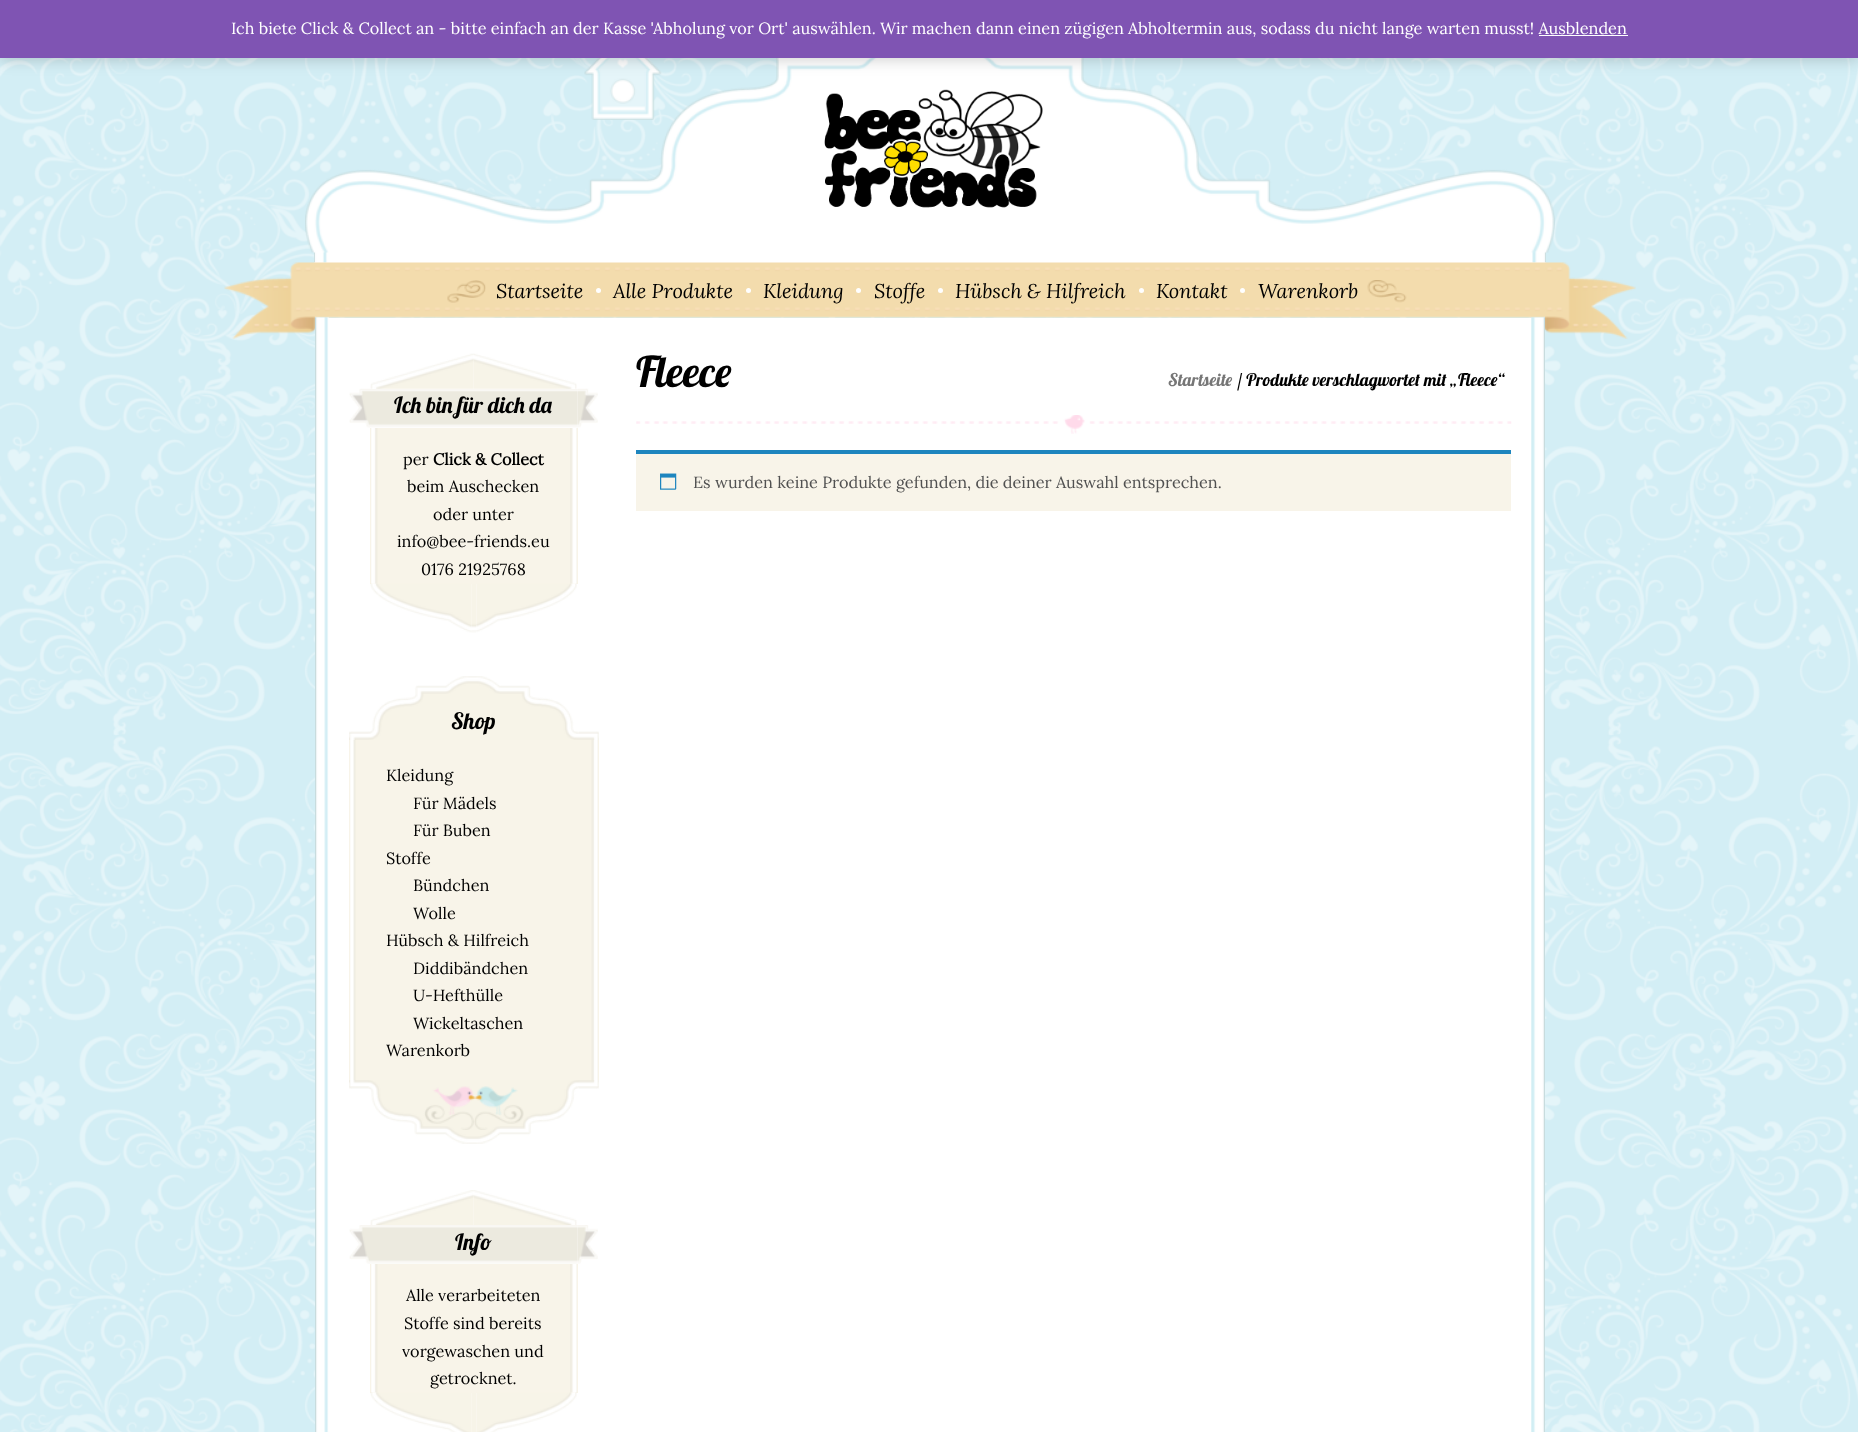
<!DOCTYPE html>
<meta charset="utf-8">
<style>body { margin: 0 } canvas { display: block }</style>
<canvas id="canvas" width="1858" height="1432"></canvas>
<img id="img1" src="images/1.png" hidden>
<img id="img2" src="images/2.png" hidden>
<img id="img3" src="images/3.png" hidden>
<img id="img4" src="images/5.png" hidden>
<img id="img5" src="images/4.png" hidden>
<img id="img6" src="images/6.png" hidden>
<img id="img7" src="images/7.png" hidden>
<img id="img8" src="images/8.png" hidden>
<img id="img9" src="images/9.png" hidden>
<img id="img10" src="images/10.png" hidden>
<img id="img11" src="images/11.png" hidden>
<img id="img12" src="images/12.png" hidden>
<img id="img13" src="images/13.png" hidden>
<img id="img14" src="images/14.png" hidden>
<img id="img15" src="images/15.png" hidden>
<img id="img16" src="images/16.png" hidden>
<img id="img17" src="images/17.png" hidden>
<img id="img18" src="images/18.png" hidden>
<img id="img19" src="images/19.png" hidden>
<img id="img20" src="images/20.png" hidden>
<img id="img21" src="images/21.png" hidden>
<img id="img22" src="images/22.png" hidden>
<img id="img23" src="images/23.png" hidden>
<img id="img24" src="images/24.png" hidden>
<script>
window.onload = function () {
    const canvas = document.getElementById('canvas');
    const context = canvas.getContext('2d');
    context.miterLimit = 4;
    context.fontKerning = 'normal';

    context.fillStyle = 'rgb(211, 238, 245)';
    context.fillRect(0, 0, 1858, 1432);
    context.drawImage(document.getElementById('img1'), 0, 58, 1858, 1374);
    context.fillStyle = 'rgb(255, 255, 255)';
    context.fillRect(314, 252, 1232, 11);
    context.drawImage(document.getElementById('img2'), 314, 252, 1232, 11);
    context.drawImage(document.getElementById('img3'), 305, 58, 1250, 195);
    context.drawImage(document.getElementById('img4'), 584, 58, 78, 62);
    context.fillStyle = 'rgba(0, 0, 0, 0.2)';
    context.filter = 'blur(8px)';
    context.beginPath();
    context.rect(0, 1, 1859, 58);
    context.fill();
    context.filter = 'none';
    context.fillStyle = 'rgb(127, 84, 179)';
    context.fillRect(0, 0, 1858, 58);
    context.fillStyle = 'rgb(255, 255, 255)';
    context.fillRect(1539, 35, 89, 1);
    context.drawImage(document.getElementById('img5'), 824, 89, 219, 119);
    context.drawImage(document.getElementById('img6'), 315, 262, 1230, 56);
    context.drawImage(document.getElementById('img7'), 224, 262, 91, 77);
    context.drawImage(document.getElementById('img8'), 447, 280, 39, 23);
    context.beginPath();
    context.arc(598.5, 290.5, 2.5, 0, 2 * Math.PI);
    context.fill();
    context.beginPath();
    context.arc(748.5, 290.5, 2.5, 0, 2 * Math.PI);
    context.fill();
    context.beginPath();
    context.arc(858.5, 290.5, 2.5, 0, 2 * Math.PI);
    context.fill();
    context.beginPath();
    context.arc(940.5, 290.5, 2.5, 0, 2 * Math.PI);
    context.fill();
    context.beginPath();
    context.arc(1141.5, 290.5, 2.5, 0, 2 * Math.PI);
    context.fill();
    context.beginPath();
    context.arc(1242.5, 290.5, 2.5, 0, 2 * Math.PI);
    context.fill();
    context.drawImage(document.getElementById('img9'), 1367, 280, 40, 23);
    context.drawImage(document.getElementById('img10'), 1545, 262, 91, 77);
    context.fillRect(328, 318, 1204, 1114);
    context.drawImage(document.getElementById('img11'), 315, 317, 1230, 1115);
    context.drawImage(document.getElementById('img12'), 370, 353, 207, 36);
    context.fillStyle = 'rgb(248, 244, 233)';
    context.fillRect(370, 428, 208, 156);
    context.drawImage(document.getElementById('img13'), 371, 428, 206, 156);
    context.drawImage(document.getElementById('img14'), 349, 388, 249, 40);
    context.drawImage(document.getElementById('img15'), 370, 583, 207, 50);
    context.drawImage(document.getElementById('img16'), 349, 676, 250, 64);
    context.fillRect(349, 740, 250, 340);
    context.drawImage(document.getElementById('img17'), 350, 740, 248, 340);
    context.drawImage(document.getElementById('img18'), 349, 1080, 250, 64);
    context.drawImage(document.getElementById('img19'), 370, 1190, 207, 35);
    context.fillRect(370, 1264, 208, 129);
    context.drawImage(document.getElementById('img20'), 371, 1264, 206, 129);
    context.drawImage(document.getElementById('img21'), 349, 1225, 249, 39);
    context.drawImage(document.getElementById('img22'), 370, 1392, 207, 40);
    context.drawImage(document.getElementById('img23'), 636, 415, 876, 19);
    context.fillRect(636, 454, 875, 57);
    context.fillStyle = 'rgb(30, 133, 190)';
    context.fillRect(636, 450, 875, 4);
    context.drawImage(document.getElementById('img24'), 660, 473, 17, 17);
    context.font = '16.25px Lora';
    context.fillStyle = 'rgb(255, 255, 255)';
    context.fillText('Ich biete Click & Collect an - bitte einfach an der Kasse \'Abholung vor Ort\' auswählen. Wir machen dann einen zügigen Abholtermin aus, sodass du nicht lange warten musst! Ausblenden', 231, 34);
    context.font = 'italic 20px Lora';
    context.fillStyle = 'rgb(0, 0, 0)';
    context.fillText('Startseite', 496, 298);
    context.fillText('Alle Produkte', 613, 298);
    context.fillText('Kleidung', 763, 298);
    context.fillText('Stoffe', 874, 298);
    context.fillText('Hübsch & Hilfreich', 955, 298);
    context.fillText('Kontakt', 1156, 298);
    context.fillText('Warenkorb', 1258, 298);
    context.font = '22.5px Lobster';
    context.fillText('Ich bin für dich da', 394, 413);
    context.font = '16.25px Lora';
    context.fillText('per', 403, 465);
    context.font = 'bold 16.25px Lora';
    context.fillText('Click & Collect', 433, 465);
    context.font = '16.25px Lora';
    context.fillText('beim Auschecken', 407, 492);
    context.fillText('oder unter', 433, 520);
    context.fillText('info@bee-friends.eu', 397, 547);
    context.fillText('0176 21925768', 421, 575);
    context.font = '22.5px Lobster';
    context.fillText('Shop', 451, 729);
    context.font = '16.25px Lora';
    context.fillText('Kleidung', 386, 781);
    context.fillText('Für Mädels', 413, 809);
    context.fillText('Für Buben', 413, 836);
    context.fillText('Stoffe', 386, 864);
    context.fillText('Bündchen', 413, 891);
    context.fillText('Wolle', 413, 919);
    context.fillText('Hübsch & Hilfreich', 386, 946);
    context.fillText('Diddibändchen', 413, 974);
    context.fillText('U-Hefthülle', 413, 1001);
    context.fillText('Wickeltaschen', 413, 1029);
    context.fillText('Warenkorb', 386, 1056);
    context.font = '22.5px Lobster';
    context.fillText('Info', 455, 1250);
    context.font = '16.25px Lora';
    context.fillText('Alle verarbeiteten', 406, 1301);
    context.fillText('Stoffe sind bereits', 404, 1329);
    context.fillText('vorgewaschen und', 402, 1357);
    context.fillText('getrocknet.', 430, 1384);
    context.font = '42.5px Lobster';
    context.fillText('Fleece', 636, 387);
    context.font = '17.5px Lobster';
    context.fillStyle = 'rgb(118, 118, 118)';
    context.fillText('Startseite', 1168, 386);
    context.fillStyle = 'rgb(0, 0, 0)';
    context.fillText('/ Produkte verschlagwortet mit „Fleece“', 1237, 386);
    context.font = '16.25px Lora';
    context.fillStyle = 'rgb(81, 81, 81)';
    context.fillText('Es wurden keine Produkte gefunden, die deiner Auswahl entsprechen.', 693, 488);
};
</script>
